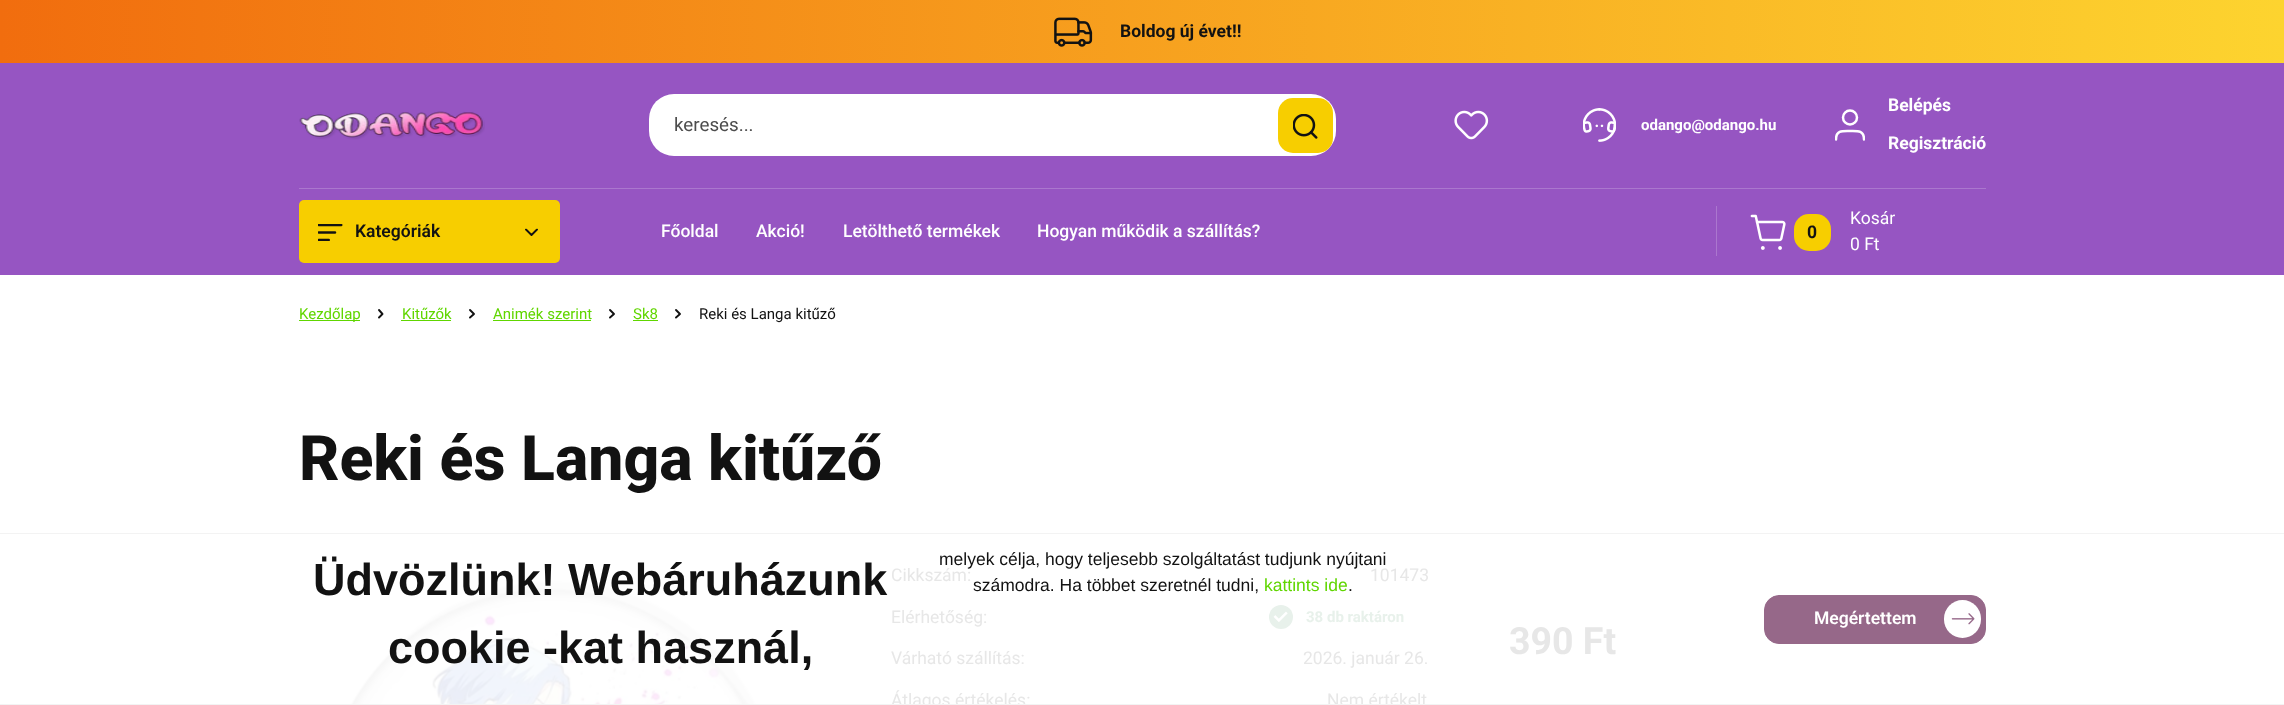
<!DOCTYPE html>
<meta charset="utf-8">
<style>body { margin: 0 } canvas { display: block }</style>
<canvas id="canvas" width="2284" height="705"></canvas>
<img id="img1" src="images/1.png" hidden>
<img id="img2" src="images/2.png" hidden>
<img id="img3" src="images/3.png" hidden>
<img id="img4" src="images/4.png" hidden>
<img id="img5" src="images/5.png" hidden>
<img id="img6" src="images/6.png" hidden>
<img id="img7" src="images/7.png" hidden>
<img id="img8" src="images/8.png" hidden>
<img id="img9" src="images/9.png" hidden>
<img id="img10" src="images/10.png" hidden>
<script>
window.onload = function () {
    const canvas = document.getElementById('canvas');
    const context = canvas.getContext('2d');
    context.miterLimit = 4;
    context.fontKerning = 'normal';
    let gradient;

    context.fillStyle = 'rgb(255, 255, 255)';
    context.fillRect(0, 0, 2284, 705);
    context.fillStyle = 'rgb(150, 85, 194)';
    context.fillRect(0, 63, 2284, 212);
    gradient = context.createLinearGradient(0, 31, 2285, 31);
    gradient.addColorStop(0, 'rgb(241, 109, 14)');
    gradient.addColorStop(1, 'rgb(253, 212, 47)');
    context.fillStyle = gradient;
    context.fillRect(0, 0, 2284, 63);
    context.drawImage(document.getElementById('img1'), 1054, 17, 39, 30);
    context.drawImage(document.getElementById('img2'), 299, 111, 186, 29);
    context.fillStyle = 'rgb(255, 255, 255)';
    context.beginPath();
    context.roundRect(649, 94, 687, 62, 25);
    context.fill();
    context.fillStyle = 'rgb(247, 206, 0)';
    context.beginPath();
    context.roundRect(1278, 98, 55, 55, 15);
    context.fill();
    context.drawImage(document.getElementById('img3'), 1293, 114, 25, 25);
    context.drawImage(document.getElementById('img4'), 1454, 110, 35, 30);
    context.drawImage(document.getElementById('img5'), 1583, 108, 33, 34);
    context.beginPath();
    context.arc(1850, 117.5, 7, 0, 2 * Math.PI);
    context.strokeStyle = 'rgb(255, 255, 255)';
    context.lineWidth = 2.5;
    context.stroke();
    context.save();
    context.beginPath();
    context.rect(1835, 109, 30, 32);
    context.clip();
    context.beginPath();
    context.moveTo(1864, 139.5);
    context.bezierCurveTo(1864, 130, 1857, 131, 1850, 131);
    context.bezierCurveTo(1843, 131, 1836, 130, 1836, 139.5);
    context.lineCap = 'round';
    context.lineJoin = 'round';
    context.stroke();
    context.restore();
    context.fillStyle = 'rgb(171, 119, 206)';
    context.fillRect(299, 188, 1687, 1);
    context.fillStyle = 'rgb(247, 206, 0)';
    context.beginPath();
    context.roundRect(299, 200, 261, 63, 5);
    context.fill();
    context.drawImage(document.getElementById('img6'), 318, 224, 25, 17);
    context.save();
    context.beginPath();
    context.moveTo(539.5, 228.5);
    context.lineTo(539.5, 236);
    context.lineTo(523, 236);
    context.lineTo(523, 228.5);
    context.closePath();
    context.clip();
    context.beginPath();
    context.moveTo(537, 229.5);
    context.lineTo(531.5, 235);
    context.lineTo(526, 229.5);
    context.strokeStyle = 'rgb(18, 18, 18)';
    context.lineWidth = 1.9;
    context.lineCap = 'round';
    context.lineJoin = 'round';
    context.stroke();
    context.restore();
    context.fillStyle = 'rgb(171, 119, 206)';
    context.fillRect(1716, 206, 1, 50);
    context.drawImage(document.getElementById('img7'), 1750, 214, 36, 36);
    context.fillStyle = 'rgb(247, 206, 0)';
    context.beginPath();
    context.roundRect(1794, 214, 37, 37, 15);
    context.fill();
    context.fillStyle = 'rgb(96, 214, 0)';
    context.fillRect(299, 320, 61, 1);
    context.beginPath();
    context.moveTo(379, 317.5);
    context.lineTo(382.5, 314);
    context.lineTo(379, 310);
    context.strokeStyle = 'rgb(18, 18, 18)';
    context.lineWidth = 1.9;
    context.lineCap = 'round';
    context.lineJoin = 'round';
    context.stroke();
    context.fillRect(401, 320, 50, 1);
    context.beginPath();
    context.moveTo(470, 317.5);
    context.lineTo(474, 314);
    context.lineTo(470, 310);
    context.stroke();
    context.fillRect(493, 320, 98, 1);
    context.beginPath();
    context.moveTo(610, 317.5);
    context.lineTo(614, 314);
    context.lineTo(610, 310);
    context.stroke();
    context.fillRect(633, 320, 25, 1);
    context.beginPath();
    context.moveTo(676, 317.5);
    context.lineTo(680, 314);
    context.lineTo(676, 310);
    context.stroke();
    context.drawImage(document.getElementById('img8'), 301, 564, 456, 140);
    context.fillStyle = 'rgb(232, 241, 235)';
    context.beginPath();
    context.arc(1281, 617, 12, 0, 2 * Math.PI);
    context.fill();
    context.drawImage(document.getElementById('img9'), 1273, 611, 15, 12);
    context.fillStyle = 'rgb(243, 243, 243)';
    context.fillRect(0, 533, 2284, 1);
    context.fillStyle = 'rgb(150, 104, 137)';
    context.beginPath();
    context.roundRect(1764.5, 595.5, 221, 48, 14.5);
    context.fill();
    context.strokeStyle = 'rgb(150, 104, 137)';
    context.lineWidth = 1;
    context.lineJoin = 'miter';
    context.stroke();
    context.fillStyle = 'rgb(255, 255, 255)';
    context.beginPath();
    context.roundRect(1944, 600, 37, 38, 18.5);
    context.fill();
    context.drawImage(document.getElementById('img10'), 1951, 613, 24, 12);
    context.font = 'bold 17.5px Roboto';
    context.fillStyle = 'rgb(18, 18, 18)';
    context.fillText('Boldog új évet!!', 1120, 37);
    context.font = '18.75px Roboto';
    context.fillStyle = 'rgb(77, 77, 77)';
    context.fillText('keresés...', 674, 131);
    context.font = 'bold 15px Roboto';
    context.fillStyle = 'rgb(255, 255, 255)';
    context.fillText('odango@odango.hu', 1641, 130);
    context.font = 'bold 17.5px Roboto';
    context.fillText('Belépés', 1888, 111);
    context.fillText('Regisztráció', 1888, 149);
    context.font = '600 17.5px Roboto';
    context.fillStyle = 'rgb(18, 18, 18)';
    context.fillText('Kategóriák', 355, 237);
    context.font = '500 17.5px Roboto';
    context.fillStyle = 'rgb(255, 255, 255)';
    context.fillText('Főoldal', 661, 237);
    context.fillText('Akció!', 756, 237);
    context.fillText('Letölthető termékek', 843, 237);
    context.fillText('Hogyan működik a szállítás?', 1037, 237);
    context.font = 'bold 17.5px Roboto';
    context.fillStyle = 'rgb(18, 18, 18)';
    context.fillText('0', 1807, 238);
    context.font = '17.5px Roboto';
    context.fillStyle = 'rgb(255, 255, 255)';
    context.fillText('Kosár', 1850, 224);
    context.fillText('0 Ft', 1850, 250);
    context.font = '15px Roboto';
    context.fillStyle = 'rgb(96, 214, 0)';
    context.fillText('Kezdőlap', 299, 319);
    context.fillText('Kitűzők', 402, 319);
    context.fillText('Animék szerint', 493, 319);
    context.fillText('Sk8', 633, 319);
    context.fillStyle = 'rgb(18, 18, 18)';
    context.fillText('Reki és Langa kitűző', 699, 319);
    context.font = '800 62.5px Roboto';
    context.fillText('Reki és Langa kitűző', 299, 480);
    context.font = '17.5px Roboto';
    context.fillStyle = 'rgb(231, 231, 231)';
    context.fillText('Cikkszám:', 891, 581);
    context.fillText('101473', 1370, 581);
    context.fillText('Elérhetőség:', 891, 623);
    context.font = 'bold 15px Roboto';
    context.fillStyle = 'rgb(232, 241, 235)';
    context.fillText('38 db raktáron', 1306, 622);
    context.font = '17.5px Roboto';
    context.fillStyle = 'rgb(231, 231, 231)';
    context.fillText('Várható szállítás:', 891, 664);
    context.fillText('2026. január 26.', 1303, 664);
    context.fillText('Átlagos értékelés:', 891, 706);
    context.fillText('Nem értékelt', 1327, 706);
    context.font = 'bold 37.5px Roboto';
    context.fillText('390 Ft', 1509, 654);
    context.fillStyle = 'rgb(243, 243, 243)';
    context.fillRect(0, 704, 2284, 1);
    context.font = 'bold 45px Liberation Sans';
    context.fillStyle = 'rgb(18, 18, 18)';
    context.fillText('Üdvözlünk! Webáruházunk', 313, 595);
    context.fillText('cookie -kat használ,', 388, 663);
    context.font = '17.5px Liberation Sans';
    context.fillText('melyek célja, hogy teljesebb szolgáltatást tudjunk nyújtani', 939, 565);
    context.fillText('számodra. Ha többet szeretnél tudni,', 973, 591);
    context.fillStyle = 'rgb(96, 214, 0)';
    context.fillText('kattints ide', 1264, 591);
    context.fillStyle = 'rgb(18, 18, 18)';
    context.fillText('.', 1348, 591);
    context.font = '600 17.5px Roboto';
    context.fillStyle = 'rgb(255, 255, 255)';
    context.fillText('Megértettem', 1814, 624);
};
</script>
